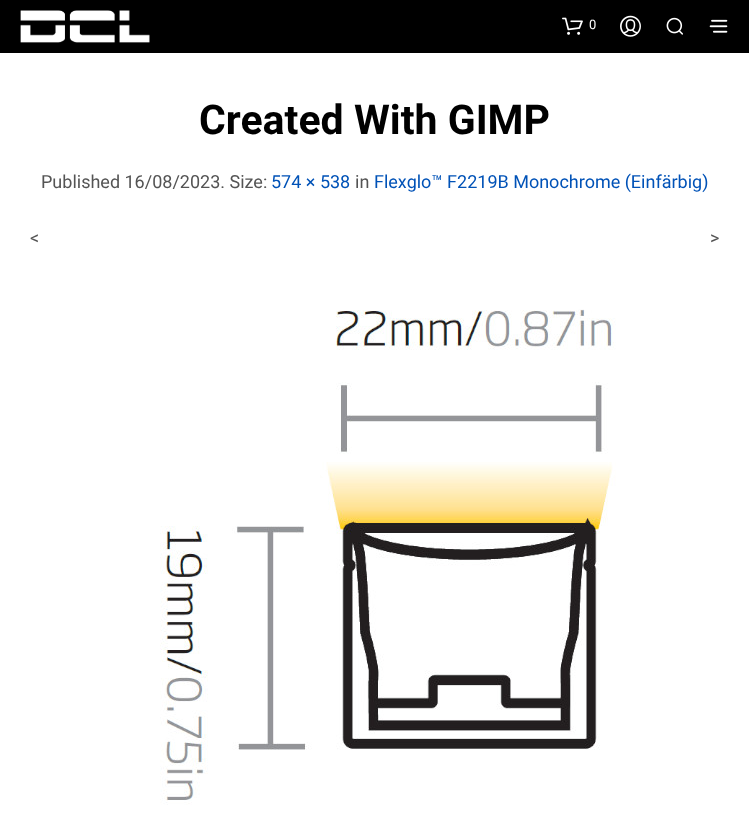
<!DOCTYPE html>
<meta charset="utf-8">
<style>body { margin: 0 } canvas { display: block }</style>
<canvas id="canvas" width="749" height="837"></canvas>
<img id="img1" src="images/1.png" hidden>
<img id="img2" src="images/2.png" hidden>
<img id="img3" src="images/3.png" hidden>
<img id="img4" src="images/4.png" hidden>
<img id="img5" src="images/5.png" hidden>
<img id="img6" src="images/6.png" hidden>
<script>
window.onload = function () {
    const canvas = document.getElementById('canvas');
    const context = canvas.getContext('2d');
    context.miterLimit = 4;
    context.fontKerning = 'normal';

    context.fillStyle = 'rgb(255, 255, 255)';
    context.fillRect(0, 0, 749, 837);
    context.fillStyle = 'rgb(0, 0, 0)';
    context.fillRect(0, 0, 749, 53);
    context.drawImage(document.getElementById('img1'), 20, 10, 130, 33);
    context.drawImage(document.getElementById('img2'), 562, 17, 21, 18);
    context.drawImage(document.getElementById('img3'), 620, 15, 21, 22);
    context.drawImage(document.getElementById('img4'), 666, 17, 17, 18);
    context.drawImage(document.getElementById('img5'), 709, 19, 19, 14);
    context.drawImage(document.getElementById('img6'), 160, 309, 456, 496);
    context.font = '13px Roboto';
    context.fillStyle = 'rgb(255, 255, 255)';
    context.fillText('0', 589, 29);
    context.font = 'bold 41px Roboto';
    context.fillStyle = 'rgb(0, 0, 0)';
    context.fillText('Created With GIMP', 199, 134);
    context.font = '18px Roboto';
    context.fillStyle = 'rgb(84, 84, 84)';
    context.fillText('Published 16/08/2023. Size:', 41, 188);
    context.fillStyle = 'rgb(0, 82, 183)';
    context.fillText('574 × 538', 271, 188);
    context.fillStyle = 'rgb(84, 84, 84)';
    context.fillText('in', 355, 188);
    context.fillStyle = 'rgb(0, 82, 183)';
    context.fillText('Flexglo™ F2219B Monochrome (Einfärbig)', 374, 188);
    context.fillStyle = 'rgb(84, 84, 84)';
    context.fillText('<', 30, 244);
    context.fillText('>', 710, 244);
};
</script>
